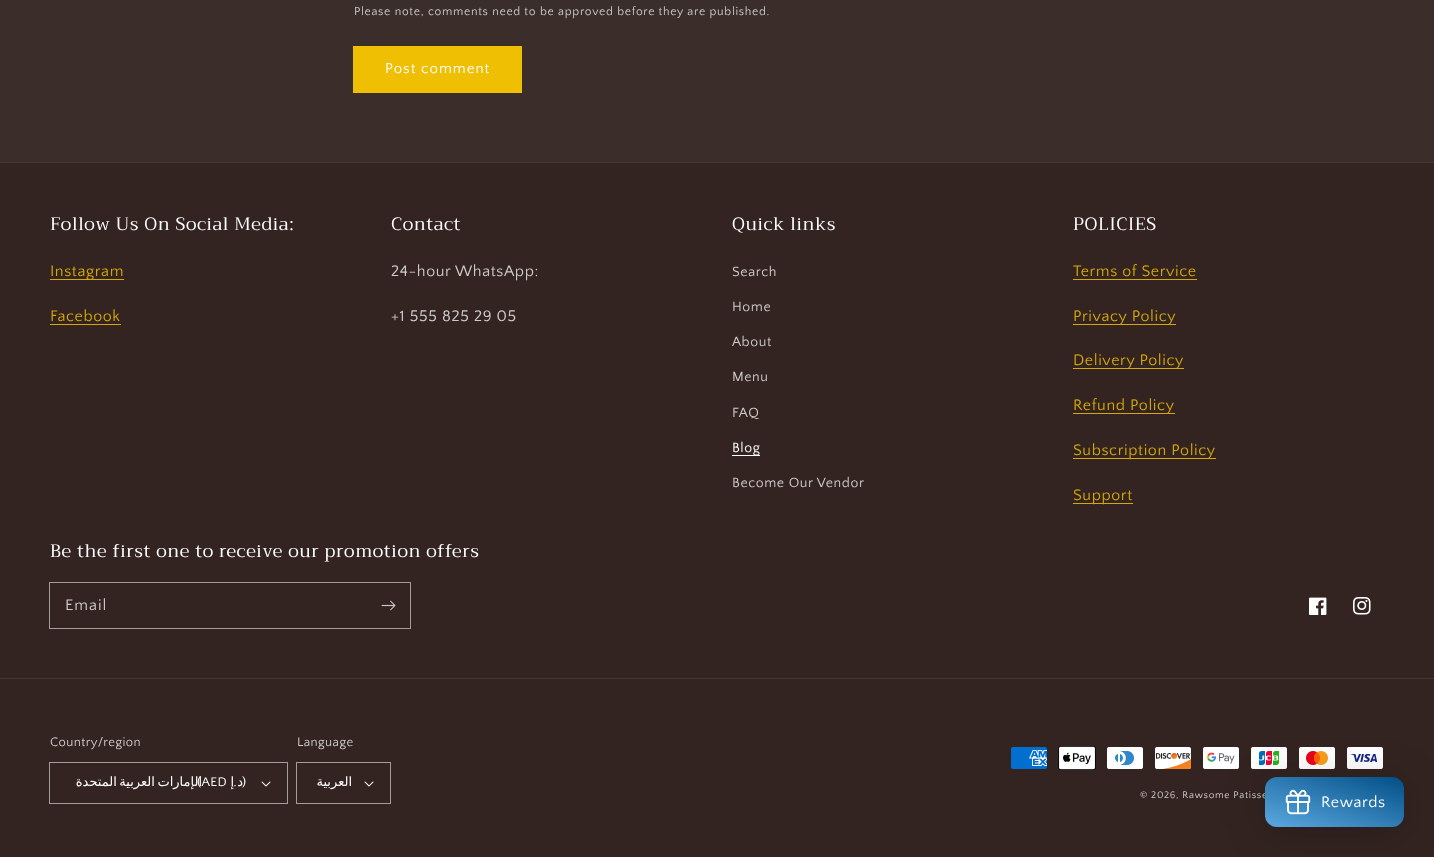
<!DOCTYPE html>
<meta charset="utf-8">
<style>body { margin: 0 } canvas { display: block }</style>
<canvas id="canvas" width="1434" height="857"></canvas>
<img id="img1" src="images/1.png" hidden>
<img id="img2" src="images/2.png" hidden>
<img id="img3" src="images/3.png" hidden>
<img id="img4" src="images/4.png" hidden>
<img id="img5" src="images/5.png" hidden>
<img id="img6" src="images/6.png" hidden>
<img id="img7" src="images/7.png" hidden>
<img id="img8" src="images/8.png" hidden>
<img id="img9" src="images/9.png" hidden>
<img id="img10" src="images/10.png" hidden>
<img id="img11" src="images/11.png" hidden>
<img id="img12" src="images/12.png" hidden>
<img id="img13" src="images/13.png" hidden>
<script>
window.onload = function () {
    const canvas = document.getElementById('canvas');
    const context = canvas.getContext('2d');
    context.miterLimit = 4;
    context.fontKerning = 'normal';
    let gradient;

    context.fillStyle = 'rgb(51, 36, 33)';
    context.fillRect(0, 0, 1434, 857);
    context.fillStyle = 'rgb(59, 45, 42)';
    context.fillRect(0, 0, 1434, 162);
    context.strokeStyle = 'rgb(239, 191, 4)';
    context.strokeRect(353.5, 46.5, 168, 46);
    context.fillStyle = 'rgb(239, 191, 4)';
    context.fillRect(354, 47, 167, 45);
    context.fillStyle = 'rgb(67, 54, 51)';
    context.fillRect(0, 162, 1434, 1);
    context.fillStyle = 'rgb(211, 168, 8)';
    context.fillRect(50, 279, 74, 1);
    context.fillRect(50, 324, 71, 1);
    context.fillStyle = 'rgb(255, 255, 255)';
    context.fillRect(732, 455, 28, 1);
    context.fillStyle = 'rgb(211, 168, 8)';
    context.fillRect(1073, 279, 124, 1);
    context.fillRect(1073, 324, 103, 1);
    context.fillRect(1073, 368, 111, 1);
    context.fillRect(1073, 413, 102, 1);
    context.fillRect(1073, 458, 143, 1);
    context.fillRect(1073, 503, 60, 1);
    context.strokeStyle = 'rgb(163, 156, 155)';
    context.strokeRect(49.5, 582.5, 361, 46);
    context.drawImage(document.getElementById('img1'), 381, 600, 15, 11);
    context.drawImage(document.getElementById('img2'), 1309, 597, 18, 18);
    context.drawImage(document.getElementById('img3'), 1353, 597, 18, 18);
    context.fillStyle = 'rgb(67, 54, 51)';
    context.fillRect(0, 678, 1434, 1);
    context.strokeRect(49.5, 762.5, 238, 41);
    context.drawImage(document.getElementById('img4'), 261, 781, 10, 6);
    context.strokeRect(296.5, 762.5, 94, 41);
    context.drawImage(document.getElementById('img4'), 364, 781, 10, 6);
    context.drawImage(document.getElementById('img5'), 1011, 747, 36, 22);
    context.drawImage(document.getElementById('img6'), 1058, 746, 38, 24);
    context.drawImage(document.getElementById('img7'), 1107, 747, 36, 22);
    context.drawImage(document.getElementById('img8'), 1155, 747, 36, 22);
    context.drawImage(document.getElementById('img9'), 1203, 747, 36, 22);
    context.drawImage(document.getElementById('img10'), 1251, 747, 36, 22);
    context.drawImage(document.getElementById('img11'), 1299, 747, 36, 22);
    context.drawImage(document.getElementById('img12'), 1347, 747, 36, 22);
    context.fillStyle = 'rgba(0, 0, 0, 0.22)';
    context.filter = 'blur(20px)';
    context.beginPath();
    context.roundRect(1265, 782, 139, 50, 12);
    context.fill();
    context.filter = 'none';
    context.letterSpacing = '0.7px';
    context.font = '12px Quattrocento Sans';
    context.fillStyle = 'rgb(206, 203, 202)';
    context.fillText('Please note, comments need to be approved before they are published.', 354, 15);
    context.letterSpacing = '1px';
    context.font = '15px Quattrocento Sans';
    context.fillStyle = 'rgb(255, 255, 255)';
    context.fillText('Post comment', 385, 73);
    context.letterSpacing = '0.6px';
    context.font = '18px Trirong';
    context.fillText('Follow Us On Social Media:', 50, 230);
    context.font = '16px Quattrocento Sans';
    context.fillStyle = 'rgb(211, 168, 8)';
    context.fillText('Instagram', 50, 276);
    context.fillText('Facebook', 50, 321);
    context.font = '18px Trirong';
    context.fillStyle = 'rgb(255, 255, 255)';
    context.fillText('Contact', 391, 230);
    context.font = '16px Quattrocento Sans';
    context.fillStyle = 'rgb(206, 203, 202)';
    context.fillText('24-hour WhatsApp:', 391, 276);
    context.fillText('+1 555 825 29 05', 391, 321);
    context.font = '18px Trirong';
    context.fillStyle = 'rgb(255, 255, 255)';
    context.fillText('Quick links', 732, 230);
    context.font = '14px Quattrocento Sans';
    context.fillStyle = 'rgb(206, 203, 202)';
    context.fillText('Search', 732, 276);
    context.fillText('Home', 732, 311);
    context.fillText('About', 732, 346);
    context.fillText('Menu', 732, 381);
    context.fillText('FAQ', 732, 417);
    context.fillStyle = 'rgb(255, 255, 255)';
    context.fillText('Blog', 732, 452);
    context.fillStyle = 'rgb(206, 203, 202)';
    context.fillText('Become Our Vendor', 732, 487);
    context.font = '18px Trirong';
    context.fillStyle = 'rgb(255, 255, 255)';
    context.fillText('POLICIES', 1073, 230);
    context.font = '16px Quattrocento Sans';
    context.fillStyle = 'rgb(211, 168, 8)';
    context.fillText('Terms of Service', 1073, 276);
    context.fillText('Privacy Policy', 1073, 321);
    context.fillText('Delivery Policy', 1073, 365);
    context.fillText('Refund Policy', 1073, 410);
    context.fillText('Subscription Policy', 1073, 455);
    context.fillText('Support', 1073, 500);
    context.font = '18px Trirong';
    context.fillStyle = 'rgb(255, 255, 255)';
    context.fillText('Be the first one to receive our promotion offers', 50, 557);
    context.letterSpacing = '1px';
    context.font = '16px Quattrocento Sans';
    context.fillStyle = 'rgb(206, 203, 202)';
    context.fillText('Email', 65, 610);
    context.letterSpacing = '0.4px';
    context.font = '13px Quattrocento Sans';
    context.fillText('Country/region', 50, 746);
    context.wordSpacing = '-2px';
    context.direction = 'rtl';
    context.font = '13px DejaVu Sans';
    context.fillStyle = 'rgb(255, 255, 255)';
    context.fillText('الإمارات العربية المتحدة', 202, 786);
    context.wordSpacing = '0px';
    context.direction = 'ltr';
    context.font = '13px Quattrocento Sans';
    context.fillText('(AED', 197, 786);
    context.direction = 'rtl';
    context.font = '13px DejaVu Sans';
    context.fillText('إ', 234, 786);
    context.font = '13px Quattrocento Sans';
    context.fillText('.', 237, 786);
    context.font = '13px DejaVu Sans';
    context.fillText('د', 243, 786);
    context.direction = 'ltr';
    context.font = '13px Quattrocento Sans';
    context.fillText(')', 242, 786);
    context.fillStyle = 'rgb(206, 203, 202)';
    context.fillText('Language', 297, 746);
    context.direction = 'rtl';
    context.font = '13px DejaVu Sans';
    context.fillStyle = 'rgb(255, 255, 255)';
    context.fillText('العربية', 352, 786);
    context.letterSpacing = '0.7px';
    context.direction = 'ltr';
    context.font = '10px Quattrocento Sans';
    context.fillStyle = 'rgb(206, 203, 202)';
    context.fillText('© 2026, Rawsome Patisse', 1140, 798);
    gradient = context.createLinearGradient(1350, 758, 1319, 846);
    gradient.addColorStop(0, 'rgb(1, 79, 134)');
    gradient.addColorStop(1, 'rgb(91, 169, 224)');
    context.fillStyle = gradient;
    context.beginPath();
    context.roundRect(1265, 777, 139, 50, 12);
    context.fill();
    context.drawImage(document.getElementById('img13'), 1285, 789, 26, 26);
    context.letterSpacing = '0.6px';
    context.font = '16px Quattrocento Sans';
    context.fillStyle = 'rgb(255, 255, 255)';
    context.fillText('Rewards', 1321, 807);
};
</script>
